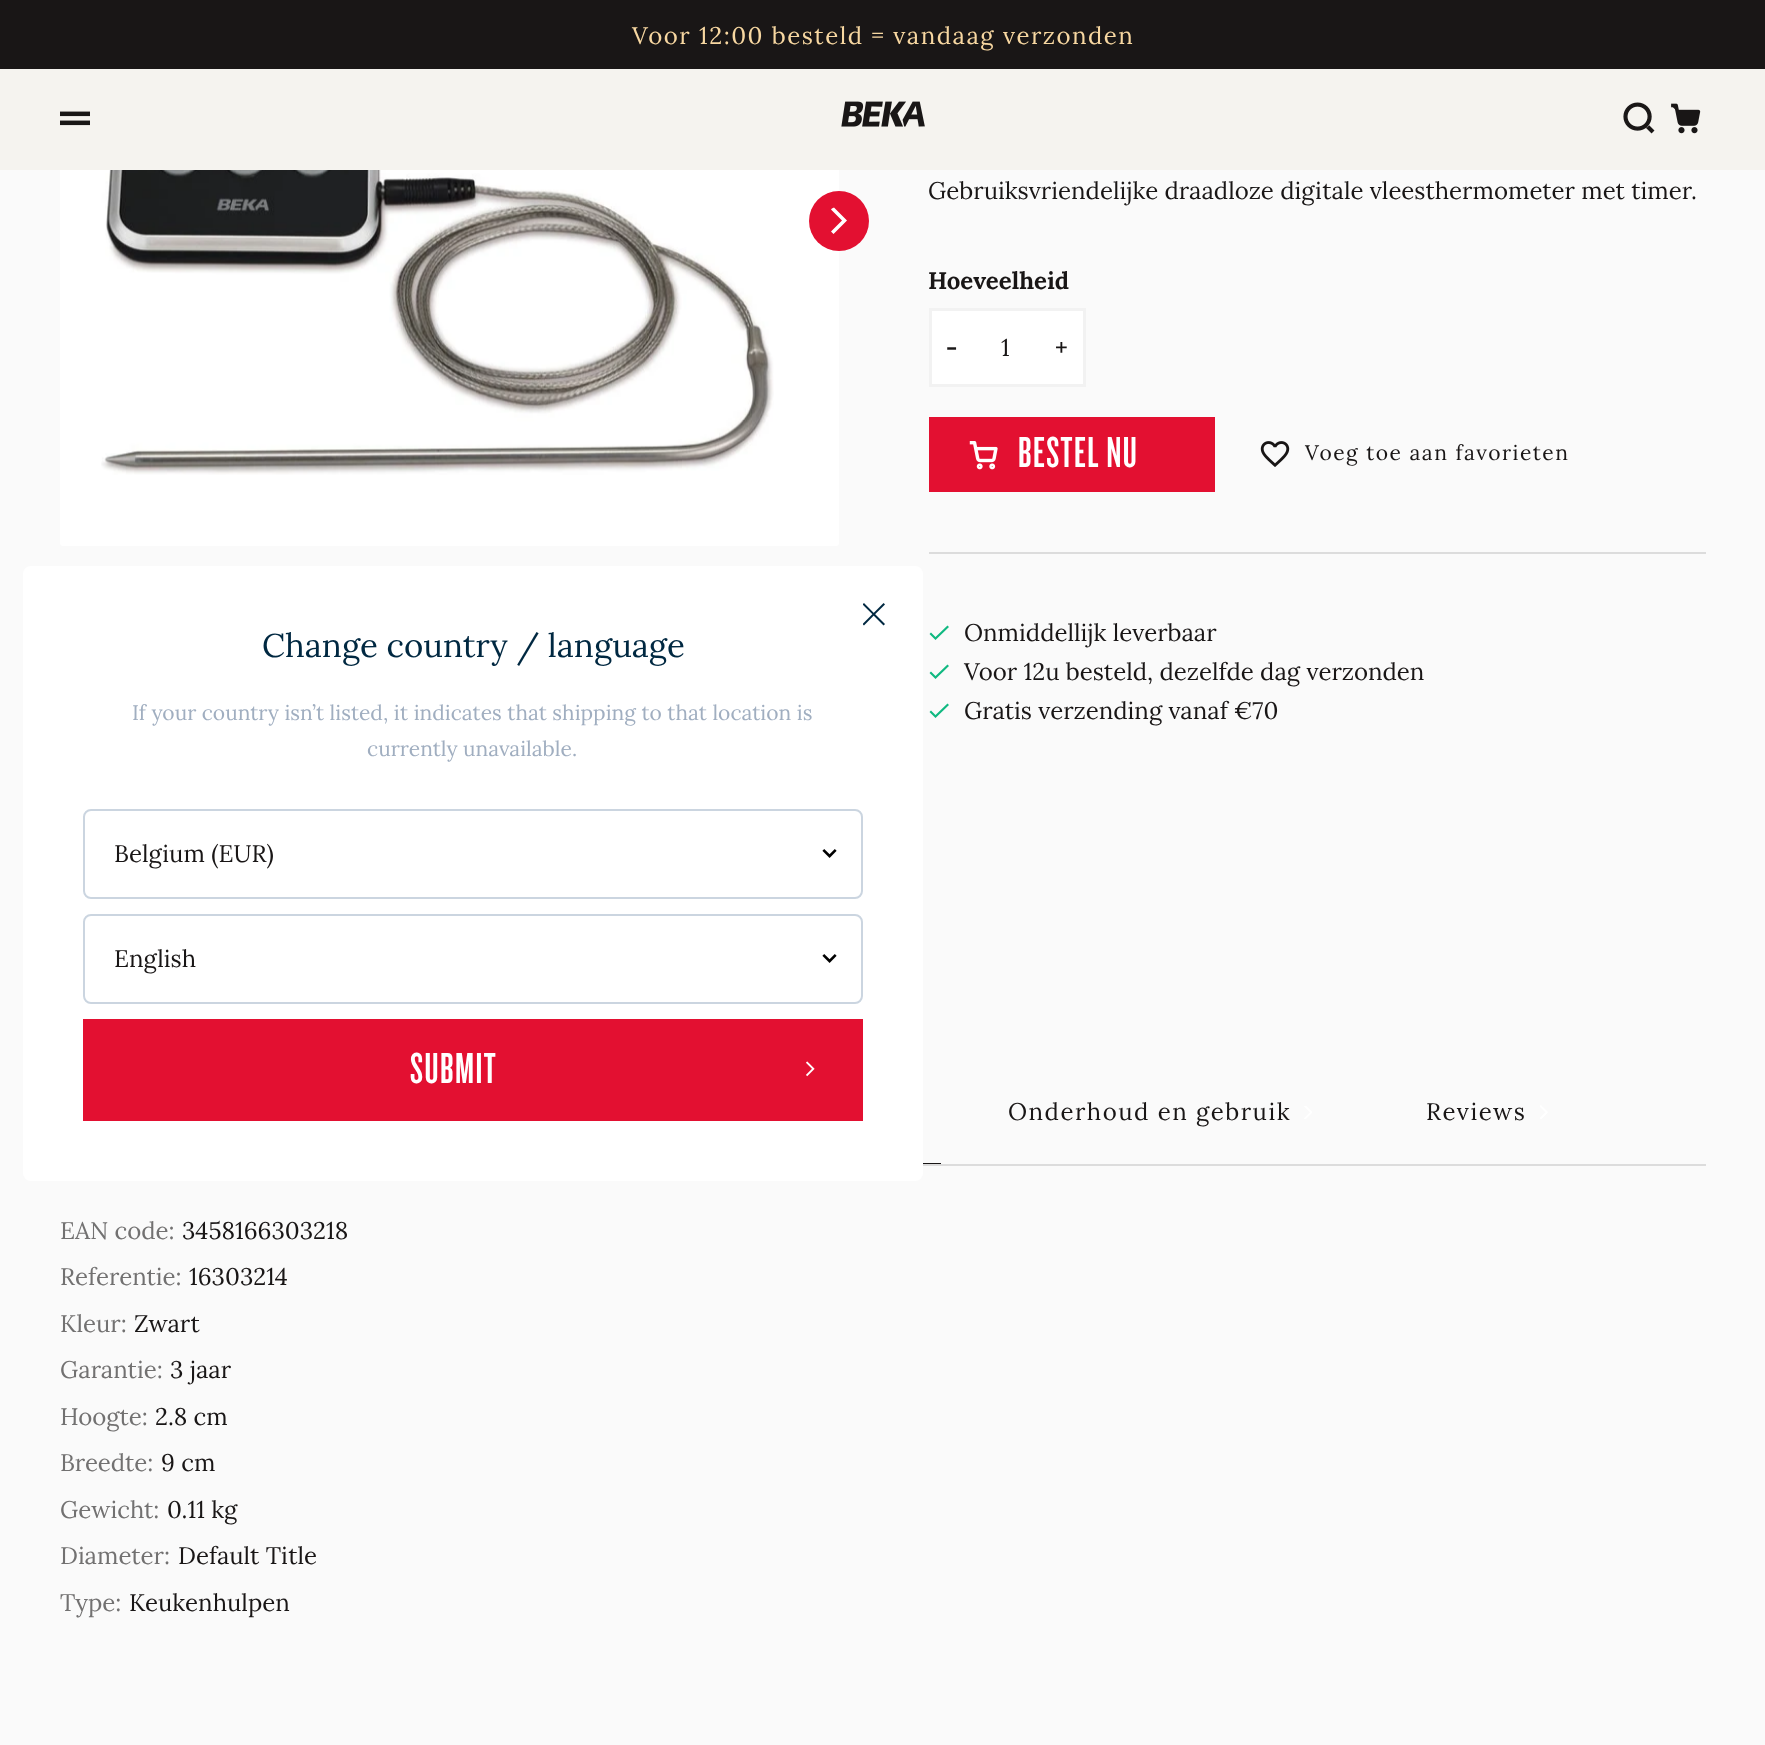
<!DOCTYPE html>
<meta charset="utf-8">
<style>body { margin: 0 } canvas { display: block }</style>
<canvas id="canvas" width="1765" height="1745"></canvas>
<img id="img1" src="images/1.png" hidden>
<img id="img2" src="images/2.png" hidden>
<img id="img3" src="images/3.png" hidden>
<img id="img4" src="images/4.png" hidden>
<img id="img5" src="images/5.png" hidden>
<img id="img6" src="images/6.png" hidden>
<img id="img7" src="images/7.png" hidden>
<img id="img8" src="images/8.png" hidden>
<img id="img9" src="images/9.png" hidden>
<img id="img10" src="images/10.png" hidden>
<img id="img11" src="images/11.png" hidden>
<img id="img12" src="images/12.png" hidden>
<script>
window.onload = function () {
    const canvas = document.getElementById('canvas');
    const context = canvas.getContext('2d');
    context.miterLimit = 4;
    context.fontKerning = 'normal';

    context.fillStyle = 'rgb(250, 250, 250)';
    context.fillRect(0, 0, 1765, 1745);
    context.fillStyle = 'rgb(255, 255, 255)';
    context.beginPath();
    context.roundRect(60, -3, 779, 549, 3);
    context.fill();
    context.fillStyle = 'rgb(25, 22, 22)';
    context.fillRect(0, 0, 1765, 69);
    context.fillStyle = 'rgb(245, 243, 239)';
    context.fillRect(0, 69, 1765, 101);
    context.drawImage(document.getElementById('img1'), 60, 111, 30, 15);
    context.drawImage(document.getElementById('img2'), 841, 101, 84, 26);
    context.drawImage(document.getElementById('img3'), 1623, 102, 32, 32);
    context.drawImage(document.getElementById('img4'), 1671, 103, 30, 31);
    context.drawImage(document.getElementById('img5'), 101, 170, 673, 305);
    context.fillStyle = 'rgb(227, 16, 49)';
    context.beginPath();
    context.arc(839, 221, 30, 0, 2 * Math.PI);
    context.fill();
    context.fillStyle = 'rgb(255, 255, 255)';
    context.beginPath();
    context.moveTo(831, 231.5);
    context.lineTo(842, 220.5);
    context.lineTo(831, 209.5);
    context.bezierCurveTo(832, 208.5, 832.5, 208, 834, 207.5);
    context.lineTo(847, 220.5);
    context.lineTo(833.5, 234);
    context.closePath();
    context.fill();
    context.beginPath();
    context.rect(930.5, 309.5, 154, 76);
    context.fill();
    context.strokeStyle = 'rgb(242, 242, 242)';
    context.lineWidth = 3;
    context.stroke();
    context.fillStyle = 'rgb(227, 16, 49)';
    context.fillRect(929, 417, 286, 75);
    context.drawImage(document.getElementById('img6'), 969, 441, 29, 29);
    context.drawImage(document.getElementById('img7'), 1260, 441, 30, 26);
    context.fillStyle = 'rgb(220, 220, 220)';
    context.fillRect(929, 552, 777, 2);
    context.fillStyle = 'rgb(16, 185, 129)';
    context.beginPath();
    context.moveTo(935.5, 637);
    context.lineTo(931, 632.5);
    context.lineTo(929.5, 634);
    context.lineTo(935.5, 640);
    context.lineTo(949, 627);
    context.lineTo(947.5, 625.5);
    context.closePath();
    context.moveTo(935.5, 676);
    context.lineTo(931, 671.5);
    context.lineTo(929.5, 673);
    context.lineTo(935.5, 679);
    context.lineTo(949, 666);
    context.lineTo(947.5, 664.5);
    context.closePath();
    context.fill();
    context.beginPath();
    context.moveTo(935.5, 715);
    context.lineTo(931, 710.5);
    context.lineTo(929.5, 712);
    context.lineTo(935.5, 718);
    context.lineTo(949, 705);
    context.lineTo(947.5, 703.5);
    context.closePath();
    context.fill();
    context.fillStyle = 'rgb(220, 220, 220)';
    context.fillRect(923, 1164, 783, 2);
    context.drawImage(document.getElementById('img8'), 1304, 1106, 8, 13);
    context.drawImage(document.getElementById('img9'), 1540, 1105, 8, 14);
    context.fillStyle = 'rgb(25, 22, 22)';
    context.fillRect(923, 1163, 18, 1);
    context.fillStyle = 'rgb(255, 255, 255)';
    context.beginPath();
    context.roundRect(23, 566, 900, 615, 8);
    context.fill();
    context.drawImage(document.getElementById('img10'), 863, 603, 22, 23);
    context.drawImage(document.getElementById('img11'), 822, 849, 15, 9);
    context.beginPath();
    context.roundRect(84, 810, 778, 88, 7);
    context.strokeStyle = 'rgb(203, 213, 224)';
    context.lineWidth = 2;
    context.stroke();
    context.drawImage(document.getElementById('img11'), 822, 954, 15, 9);
    context.beginPath();
    context.roundRect(84, 915, 778, 88, 7);
    context.stroke();
    context.fillStyle = 'rgb(227, 16, 49)';
    context.fillRect(83, 1019, 780, 102);
    context.drawImage(document.getElementById('img12'), 806, 1061, 9, 16);
    context.letterSpacing = '1.5px';
    context.font = '24px Lora';
    context.fillStyle = 'rgb(247, 215, 161)';
    context.fillText('Voor 12:00 besteld = vandaag verzonden', 632, 44);
    context.letterSpacing = '0px';
    context.fillStyle = 'rgb(25, 22, 22)';
    context.fillText('Gebruiksvriendelijke draadloze digitale vleesthermometer met timer.', 928, 199);
    context.font = 'bold 24px Lora';
    context.fillText('Hoeveelheid', 928, 289);
    context.fillText('-', 946, 356);
    context.font = '24px Lora';
    context.fillText('1', 1001, 356);
    context.font = 'bold 24px Lora';
    context.fillText('+', 1055, 356);
    context.letterSpacing = '1.5px';
    context.font = '500 45px "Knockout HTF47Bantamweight"';
    context.fillStyle = 'rgb(255, 255, 255)';
    context.fillText('BESTEL NU', 1018, 467);
    context.font = '21px Lora';
    context.fillStyle = 'rgb(25, 22, 22)';
    context.fillText('Voeg toe aan favorieten', 1305, 460);
    context.letterSpacing = '0px';
    context.font = '24px Lora';
    context.fillText('Onmiddellijk leverbaar', 964, 641);
    context.fillText('Voor 12u besteld, dezelfde dag verzonden', 964, 680);
    context.fillText('Gratis verzending vanaf €70', 964, 719);
    context.letterSpacing = '1.5px';
    context.fillText('Onderhoud en gebruik', 1008, 1120);
    context.fillText('Reviews', 1426, 1120);
    context.letterSpacing = '0px';
    context.fillStyle = 'rgb(114, 113, 113)';
    context.fillText('EAN code:', 60, 1239);
    context.fillStyle = 'rgb(25, 22, 22)';
    context.fillText('3458166303218', 182, 1239);
    context.fillStyle = 'rgb(114, 113, 113)';
    context.fillText('Referentie:', 60, 1285);
    context.fillStyle = 'rgb(25, 22, 22)';
    context.fillText('16303214', 189, 1285);
    context.fillStyle = 'rgb(114, 113, 113)';
    context.fillText('Kleur:', 60, 1332);
    context.fillStyle = 'rgb(25, 22, 22)';
    context.fillText('Zwart', 134, 1332);
    context.fillStyle = 'rgb(114, 113, 113)';
    context.fillText('Garantie:', 60, 1378);
    context.fillStyle = 'rgb(25, 22, 22)';
    context.fillText('3 jaar', 170, 1378);
    context.fillStyle = 'rgb(114, 113, 113)';
    context.fillText('Hoogte:', 60, 1425);
    context.fillStyle = 'rgb(25, 22, 22)';
    context.fillText('2.8 cm', 155, 1425);
    context.fillStyle = 'rgb(114, 113, 113)';
    context.fillText('Breedte:', 60, 1471);
    context.fillStyle = 'rgb(25, 22, 22)';
    context.fillText('9 cm', 161, 1471);
    context.fillStyle = 'rgb(114, 113, 113)';
    context.fillText('Gewicht:', 60, 1518);
    context.fillStyle = 'rgb(25, 22, 22)';
    context.fillText('0.11 kg', 167, 1518);
    context.fillStyle = 'rgb(114, 113, 113)';
    context.fillText('Diameter:', 60, 1564);
    context.fillStyle = 'rgb(25, 22, 22)';
    context.fillText('Default Title', 178, 1564);
    context.fillStyle = 'rgb(114, 113, 113)';
    context.fillText('Type:', 60, 1611);
    context.fillStyle = 'rgb(25, 22, 22)';
    context.fillText('Keukenhulpen', 129, 1611);
    context.font = '33px Lora';
    context.fillStyle = 'rgb(0, 40, 65)';
    context.fillText('Change country / language', 262, 657);
    context.font = '21px Lora';
    context.fillStyle = 'rgb(160, 174, 192)';
    context.fillText('If your country isn’t listed, it indicates that shipping to that location is', 132, 720);
    context.fillText('currently unavailable.', 367, 756);
    context.font = '24px Lora';
    context.fillStyle = 'rgb(25, 22, 22)';
    context.fillText('Belgium (EUR)', 114, 862);
    context.fillText('English', 114, 967);
    context.letterSpacing = '1.5px';
    context.font = '500 45px "Knockout HTF47Bantamweight"';
    context.fillStyle = 'rgb(255, 255, 255)';
    context.fillText('SUBMIT', 410, 1083);
};
</script>
